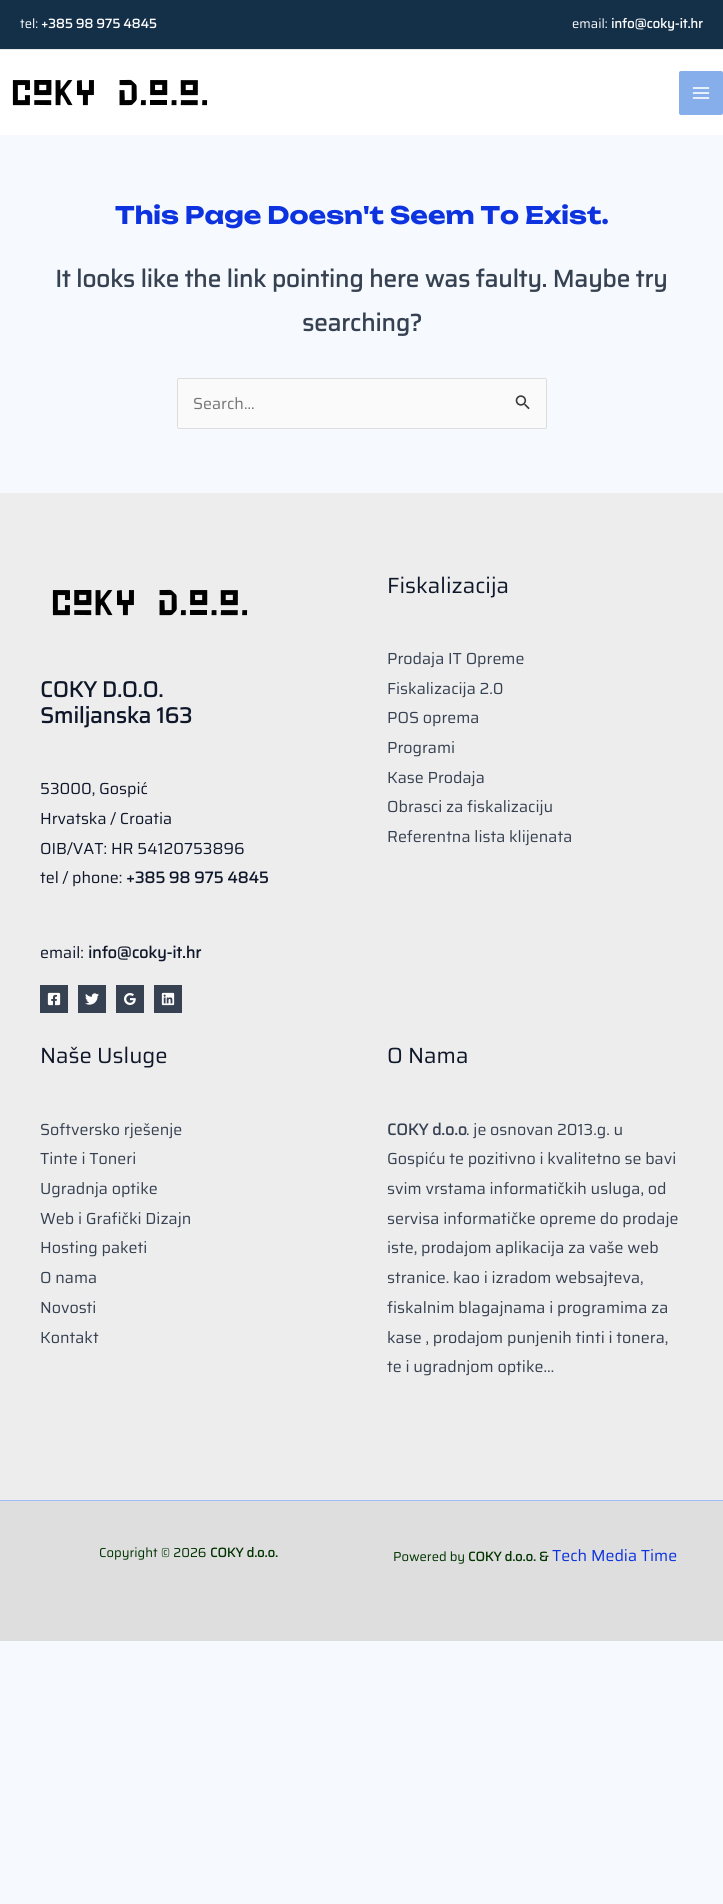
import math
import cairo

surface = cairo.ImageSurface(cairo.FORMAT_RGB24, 723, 1904)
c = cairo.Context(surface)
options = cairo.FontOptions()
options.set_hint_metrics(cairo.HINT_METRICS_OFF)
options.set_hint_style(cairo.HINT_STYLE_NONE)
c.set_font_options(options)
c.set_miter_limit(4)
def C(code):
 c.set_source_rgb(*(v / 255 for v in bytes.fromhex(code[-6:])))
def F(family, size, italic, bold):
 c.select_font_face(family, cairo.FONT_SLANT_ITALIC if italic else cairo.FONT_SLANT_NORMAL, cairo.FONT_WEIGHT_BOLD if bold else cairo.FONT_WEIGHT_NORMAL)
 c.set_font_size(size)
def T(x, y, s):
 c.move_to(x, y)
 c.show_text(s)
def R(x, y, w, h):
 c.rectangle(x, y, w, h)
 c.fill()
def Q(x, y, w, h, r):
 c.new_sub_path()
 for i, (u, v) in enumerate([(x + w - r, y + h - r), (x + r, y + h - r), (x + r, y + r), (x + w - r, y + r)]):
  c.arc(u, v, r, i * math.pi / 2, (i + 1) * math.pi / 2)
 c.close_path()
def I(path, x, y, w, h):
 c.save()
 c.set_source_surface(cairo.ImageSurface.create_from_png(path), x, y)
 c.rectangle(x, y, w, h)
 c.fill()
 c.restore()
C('f6faff')
c.paint()
C('143049')
R(0,0,723,49)
C('eaeaea')
R(0,49,723,1)
F('Saira Thin',13,0,0)
C('ffffff')
T(20,28,'tel:')
F('Saira',13,0,1)
T(41,28,'+385 98 975 4845')
F('Saira Thin',13,0,0)
T(572,28,'email:')
F('Saira',13,0,1)
T(611,28,'info@coky-it.hr')
R(0,50,723,85)
I('1.png',12,79,196,27)
C('86aeea')
Q(679,71,44,44,2)
c.fill()
I('2.png',692,87,18,12)
F('Unbounded',24,0,1)
C('0c33df')
T(115,224,'This Page Doesn\'t Seem To Exist.')
F('Saira',24,0,1)
C('364151')
T(55,287,'It looks like the link pointing here was faulty. Maybe try')
T(302,331,'searching?')
C('fafafa')
Q(177.5,378.5,369,50,1.5)
c.fill_preserve()
C('dddddd')
c.set_line_width(1)
c.stroke()
F('Saira Thin',16,0,0)
C('757575')
T(193,409,'Search...')
I('3.png',515,395,15,15)
C('ededed')
R(0,493,723,1007)
I('4.png',52,589,196,27)
F('Saira',22,0,1)
C('0f172a')
T(40,697,'COKY D.O.O.')
T(40,723,'Smiljanska 163')
F('Saira Thin',16,0,0)
T(40,794,'53000, Gospić')
T(40,824,'Hrvatska / Croatia')
T(40,854,'OIB/VAT: HR 54120753896')
T(40,883,'tel / phone:')
F('Saira',16,0,1)
T(126,883,'+385 98 975 4845')
F('Saira Thin',16,0,0)
T(40,958,'email:')
F('Saira',16,0,1)
T(88,958,'info@coky-it.hr')
C('364151')
R(40,985,28,28)
I('5.png',47,992,14,14)
R(78,985,28,28)
I('6.png',85,993,14,12)
R(116,985,28,28)
I('7.png',124,993,12,12)
R(154,985,28,28)
I('8.png',161,992,14,14)
F('Saira Thin',22,0,0)
C('0f172a')
T(387,593,'Fiskalizacija')
F('Saira Thin',16,0,0)
C('364151')
T(387,664,'Prodaja IT Opreme')
T(387,694,'Fiskalizacija 2.0')
T(387,723,'POS oprema')
T(387,753,'Programi')
T(387,783,'Kase Prodaja')
T(387,812,'Obrasci za fiskalizaciju')
T(387,842,'Referentna lista klijenata')
F('Saira Thin',22,0,0)
C('0f172a')
T(40,1063,'Naše Usluge')
F('Saira Thin',16,0,0)
C('364151')
T(40,1135,'Softversko rješenje')
T(40,1164,'Tinte i Toneri')
T(40,1194,'Ugradnja optike')
T(40,1224,'Web i Grafički Dizajn')
T(40,1253,'Hosting paketi')
T(40,1283,'O nama')
T(40,1313,'Novosti')
T(40,1343,'Kontakt')
F('Saira Thin',22,0,0)
C('0f172a')
T(387,1063,'O Nama')
F('Saira',16,0,1)
C('364151')
T(387,1135,'COKY d.o.o')
F('Saira Thin',16,0,0)
T(466,1135,'. je osnovan 2013.g. u')
T(387,1164,'Gospiću te pozitivno i kvalitetno se bavi')
T(387,1194,'svim vrstama informatičkih usluga, od')
T(387,1224,'servisa informatičke opreme do prodaje')
T(387,1253,'iste, prodajom aplikacija za vaše web')
T(387,1283,'stranice. kao i izradom websajteva,')
T(387,1313,'fiskalnim blagajnama i programima za')
T(387,1343,'kase , prodajom punjenih tinti i tonera,')
T(387,1372,'te i ugradnjom optike…')
C('dedede')
R(0,1501,723,140)
C('9fbdf6')
R(0,1500,723,1)
F('Saira Thin',13,0,0)
C('003300')
T(99,1557,'Copyright © 2026')
F('Saira',13,0,1)
T(210,1557,'COKY d.o.o.')
F('Saira Thin',13,0,0)
T(393,1561,'Powered by')
F('Saira',13,0,1)
T(468,1561,'COKY d.o.o. &')
F('Saira Thin',16,0,0)
C('0c33df')
T(552,1561,'Tech Media Time')
surface.write_to_png('o.png')
